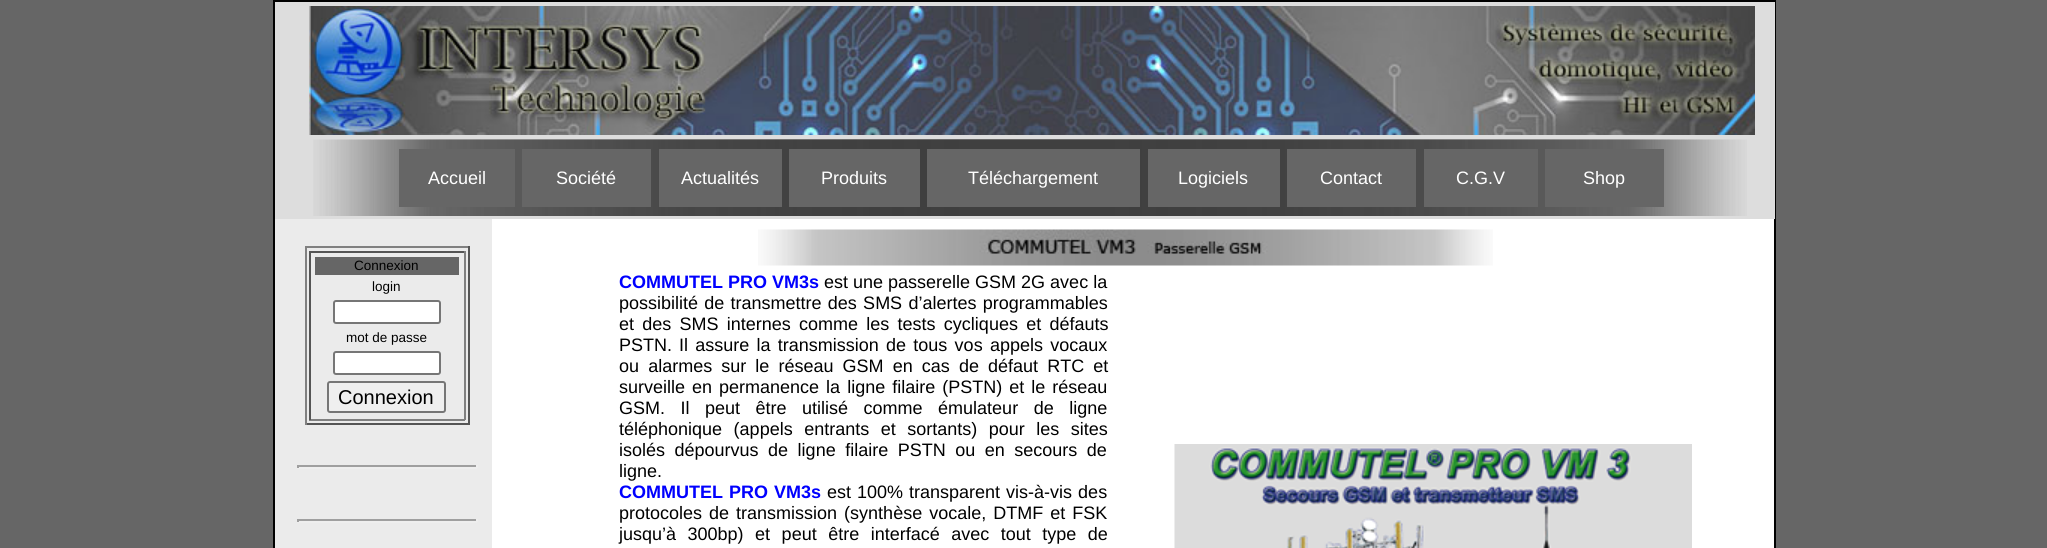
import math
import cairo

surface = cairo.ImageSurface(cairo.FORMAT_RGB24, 2047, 548)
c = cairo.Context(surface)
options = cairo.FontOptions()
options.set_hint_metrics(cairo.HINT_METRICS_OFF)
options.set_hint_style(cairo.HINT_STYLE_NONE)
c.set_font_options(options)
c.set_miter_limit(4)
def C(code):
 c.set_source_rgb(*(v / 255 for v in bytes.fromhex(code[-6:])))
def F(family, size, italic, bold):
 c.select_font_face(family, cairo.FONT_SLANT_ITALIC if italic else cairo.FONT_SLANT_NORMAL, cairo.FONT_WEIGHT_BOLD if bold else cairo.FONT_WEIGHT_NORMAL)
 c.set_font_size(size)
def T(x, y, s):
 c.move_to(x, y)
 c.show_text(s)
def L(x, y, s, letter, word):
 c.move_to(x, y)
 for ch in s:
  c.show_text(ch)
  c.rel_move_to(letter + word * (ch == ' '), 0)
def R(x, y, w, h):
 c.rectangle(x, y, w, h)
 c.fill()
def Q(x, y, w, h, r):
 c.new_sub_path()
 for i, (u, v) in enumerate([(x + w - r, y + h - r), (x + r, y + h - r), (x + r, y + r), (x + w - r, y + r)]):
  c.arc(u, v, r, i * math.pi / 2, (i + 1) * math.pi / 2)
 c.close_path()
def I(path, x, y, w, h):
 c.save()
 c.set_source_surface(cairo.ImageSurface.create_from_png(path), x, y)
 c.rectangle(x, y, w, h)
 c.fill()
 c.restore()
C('666666')
c.paint()
C('ffffff')
R(492,219,1282,329)
c.rectangle(274,1,1501,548)
C('000000')
c.stroke()
C('dddddd')
R(275,2,1500,217)
I('1.png',309,6,1446,129)
I('2.png',313,139,1434,77)
C('666666')
R(399,149,116,58)
F('Liberation Sans',18,0,0)
C('ffffff')
T(428,184,'Accueil')
C('666666')
R(522,149,129,58)
C('ffffff')
T(556,184,'Société')
C('666666')
R(659,149,123,58)
C('ffffff')
T(681,184,'Actualités')
C('666666')
R(789,149,131,58)
C('ffffff')
T(821,184,'Produits')
C('666666')
R(927,149,213,58)
C('ffffff')
T(968,184,'Téléchargement')
C('666666')
R(1148,149,132,58)
C('ffffff')
T(1178,184,'Logiciels')
C('666666')
R(1287,149,129,58)
C('ffffff')
T(1320,184,'Contact')
C('666666')
R(1424,149,114,58)
C('ffffff')
T(1456,184,'C.G.V')
C('666666')
R(1545,149,119,58)
C('ffffff')
T(1583,184,'Shop')
C('ebebeb')
R(275,219,217,329)
C('808080')
R(305,246,165,2)
C('555555')
R(468,246,2,179)
R(305,423,165,2)
C('808080')
R(305,246,2,179)
C('555555')
R(309,251,156,2)
C('808080')
R(464,251,2,169)
R(309,419,156,2)
C('555555')
R(309,251,2,169)
C('666666')
R(315,257,144,18)
F('Liberation Sans',13.5,0,0)
C('000000')
T(354,270,'Connexion')
T(372,291,'login')
C('ffffff')
Q(334,301,106,22,2)
c.fill_preserve()
C('767676')
c.stroke()
C('000000')
T(346,342,'mot de passe')
C('ffffff')
Q(334,352,106,22,2)
c.fill_preserve()
C('767676')
c.stroke()
C('efefef')
Q(328,382,117,30,2)
c.fill_preserve()
C('767676')
c.stroke()
F('Liberation Sans',20,0,0)
C('000000')
T(338,404,'Connexion')
C('9f9f9f')
R(297,465,180,2)
C('eeeeee')
R(476,465,2,3)
R(297,467,180,2)
C('9f9f9f')
R(297,465,2,3)
R(297,519,180,2)
C('eeeeee')
R(476,519,2,3)
R(297,521,180,2)
C('9f9f9f')
R(297,519,2,3)
I('3.png',758,229,735,37)
F('Liberation Sans',18,0,1)
C('0000ff')
T(619,288,'COMMUTEL PRO VM3s')
F('Liberation Sans',18,0,0)
C('000000')
T(824,288,'est une passerelle GSM 2G avec la')
L(619,309,'possibilité de transmettre des SMS d’alertes programmables',0,1.25)
L(619,330,'et des SMS internes comme les tests cycliques et défauts',0,3.25)
T(619,351,'PSTN.')
L(679,351,'Il assure la transmission de tous vos appels vocaux',0,2.25)
L(619,372,'ou alarmes sur le réseau GSM en cas de défaut RTC et',0,4.1)
L(619,393,'surveille en permanence la ligne filaire (PSTN) et le réseau',0,2)
L(619,414,'GSM. Il peut être utilisé comme émulateur de ligne',0,10.5)
L(619,435,'téléphonique (appels entrants et sortants) pour les sites',0,6.5)
L(619,456,'isolés dépourvus de ligne filaire PSTN ou en secours de',0,4.5)
T(619,477,'ligne.')
F('Liberation Sans',18,0,1)
C('0000ff')
L(619,498,'COMMUTEL PRO VM3s',0,1)
F('Liberation Sans',18,0,0)
C('000000')
L(827,498,'est 100% transparent vis-à-vis des',0,1)
L(619,519,'protocoles de transmission (synthèse vocale, DTMF et FSK',0,2)
L(619,540,'jusqu’à 300bp) et peut être interfacé avec tout type de',0,6.5)
I('4.png',1174,444,518,104)
surface.write_to_png('o.png')
